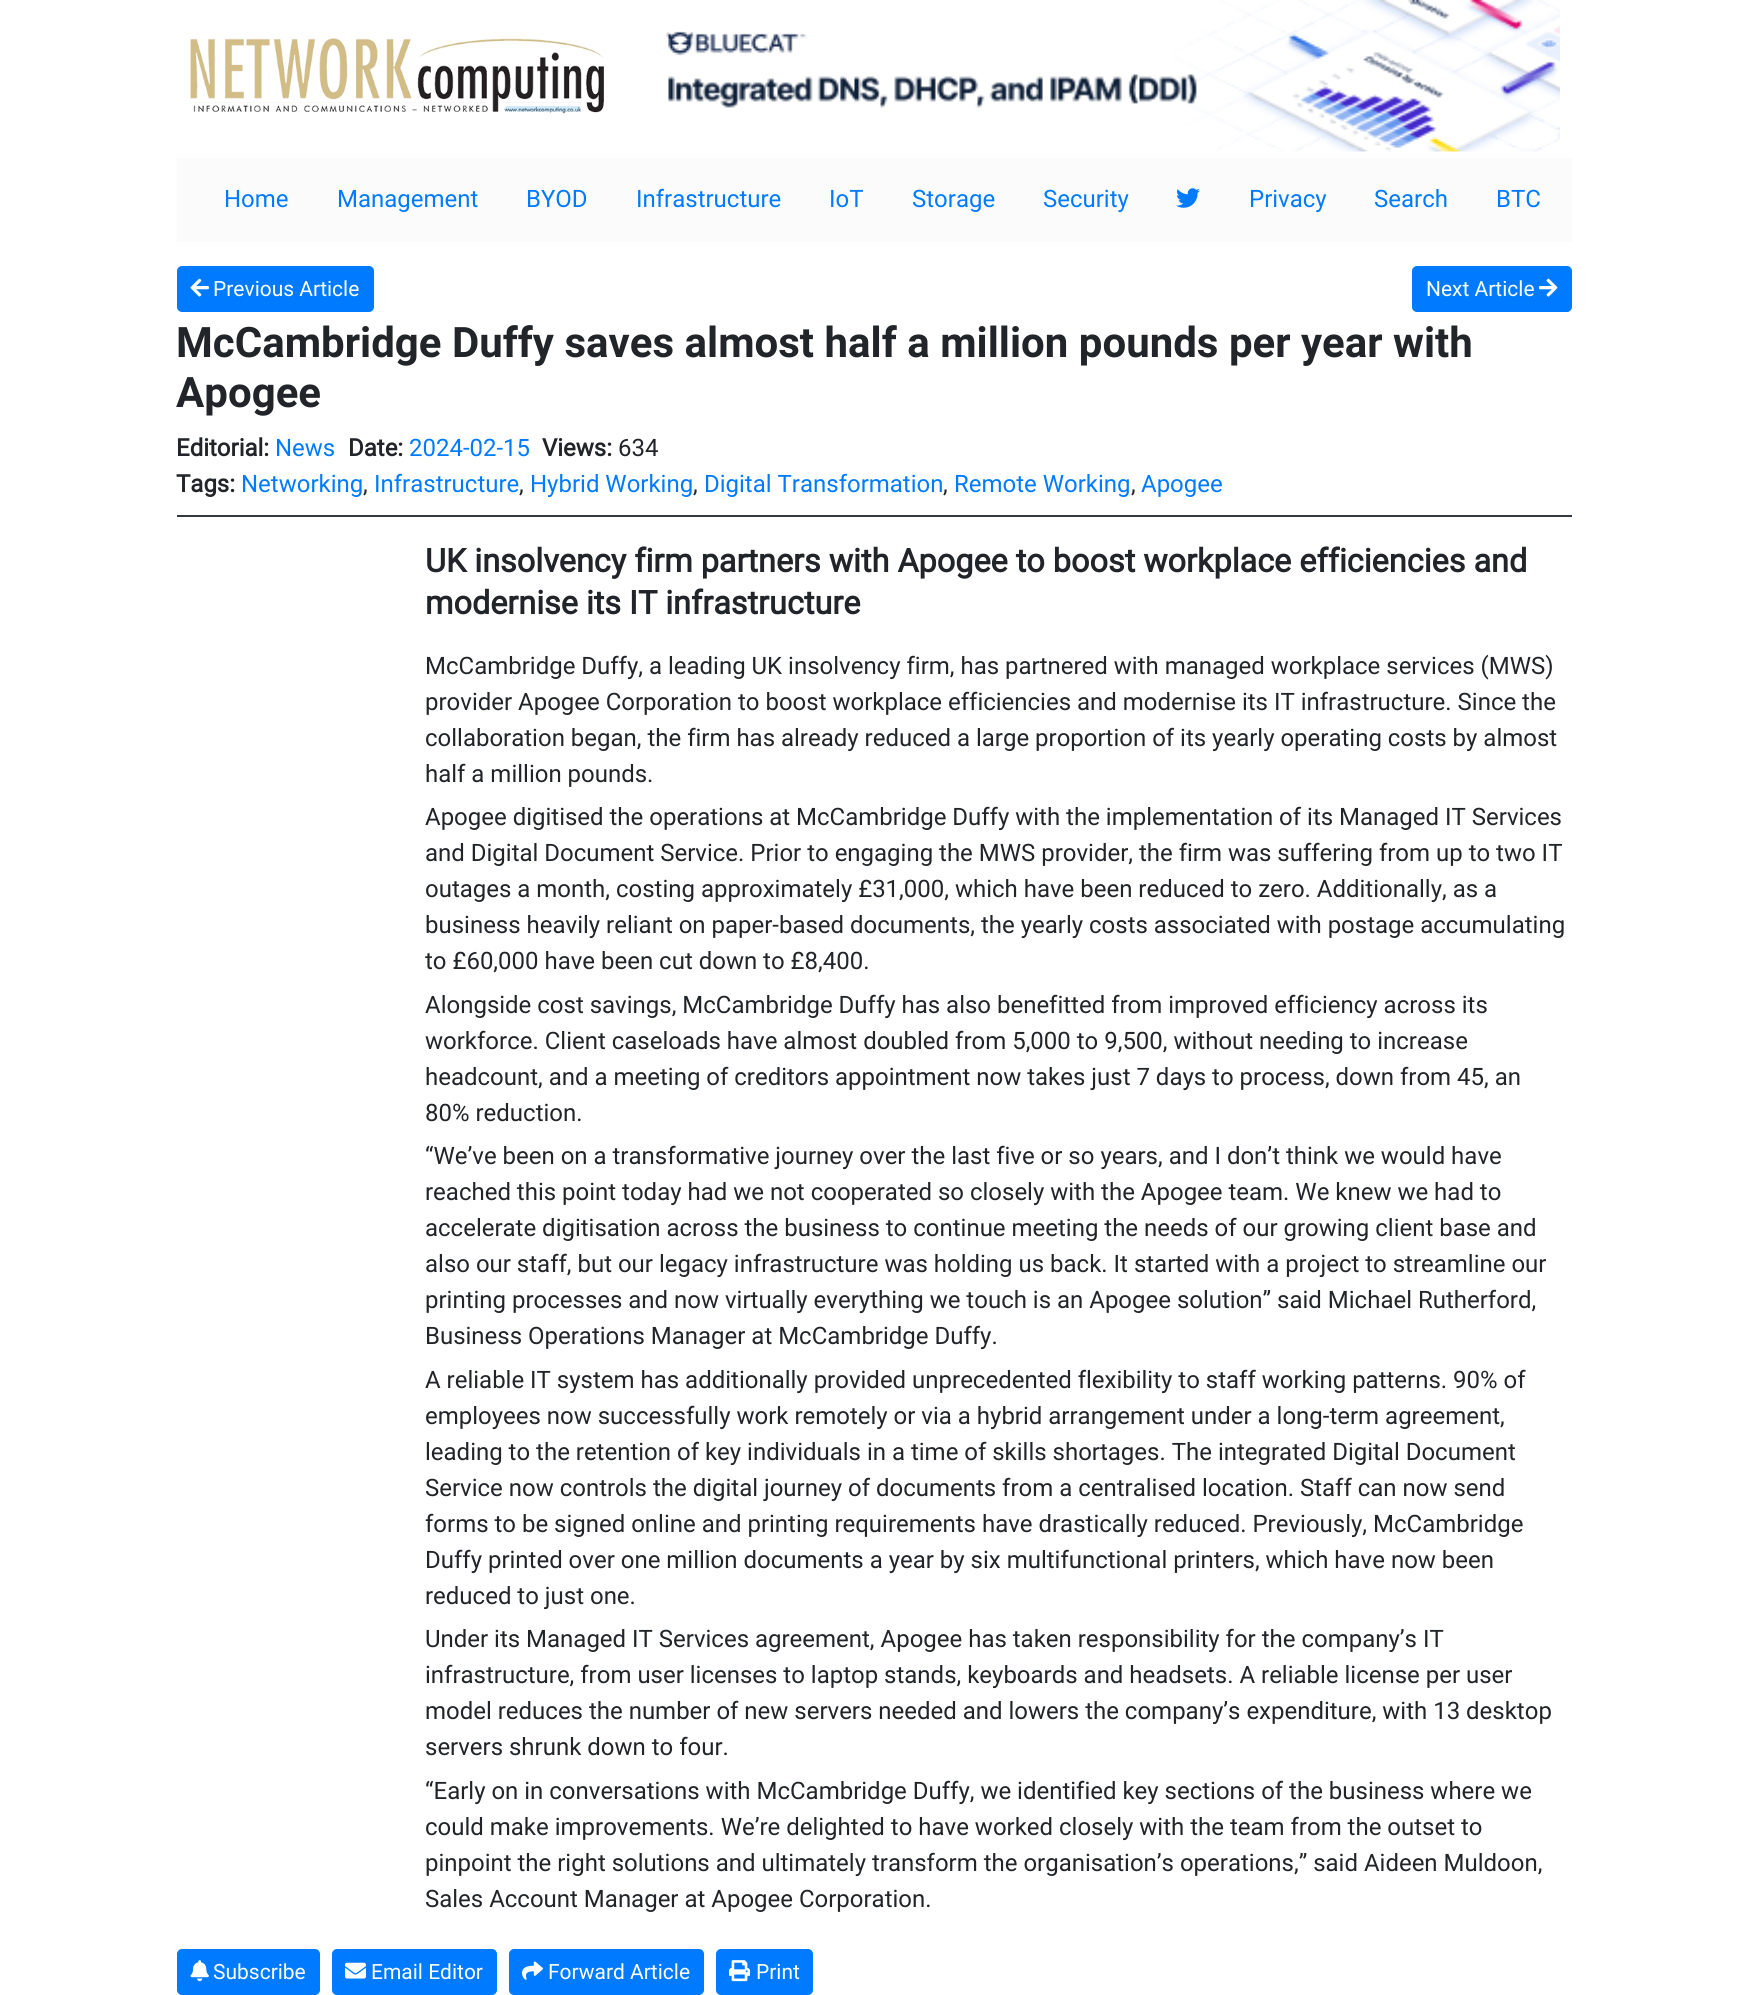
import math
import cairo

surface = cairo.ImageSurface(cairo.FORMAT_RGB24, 1747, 1995)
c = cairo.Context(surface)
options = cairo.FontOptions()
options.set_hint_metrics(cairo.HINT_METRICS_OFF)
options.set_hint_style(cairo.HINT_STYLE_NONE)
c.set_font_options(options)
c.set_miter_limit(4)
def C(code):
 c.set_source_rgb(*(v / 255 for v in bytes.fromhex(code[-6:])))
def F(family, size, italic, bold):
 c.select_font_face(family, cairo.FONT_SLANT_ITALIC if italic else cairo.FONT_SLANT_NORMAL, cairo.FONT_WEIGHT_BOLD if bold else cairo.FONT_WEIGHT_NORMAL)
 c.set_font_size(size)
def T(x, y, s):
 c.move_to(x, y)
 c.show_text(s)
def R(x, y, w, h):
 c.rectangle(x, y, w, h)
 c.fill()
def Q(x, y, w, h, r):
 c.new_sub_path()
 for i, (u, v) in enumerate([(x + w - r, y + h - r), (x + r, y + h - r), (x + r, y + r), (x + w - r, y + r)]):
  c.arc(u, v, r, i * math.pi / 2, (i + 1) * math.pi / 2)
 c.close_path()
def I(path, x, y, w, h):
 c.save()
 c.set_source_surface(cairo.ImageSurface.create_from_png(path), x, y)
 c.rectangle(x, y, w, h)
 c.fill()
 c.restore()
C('ffffff')
c.paint()
I('1.png',190,38,414,76)
I('2.png',666,0,894,152)
C('fbfbfb')
R(177,158,1395,84)
F('Roboto',24,0,0)
C('007bff')
T(224,207,'Home')
T(337,207,'Management')
T(526,207,'BYOD')
T(636,207,'Infrastructure')
T(829,207,'IoT')
T(912,207,'Storage')
T(1043,207,'Security')
I('3.png',1176,188,24,20)
T(1249,207,'Privacy')
T(1374,207,'Search')
T(1496,207,'BTC')
Q(178,267,195,44,4)
c.fill_preserve()
c.stroke()
I('4.png',190,278,19,19)
F('Roboto',21,0,0)
C('ffffff')
T(213,296,'Previous Article')
C('007bff')
Q(1413,267,158,44,4)
c.fill_preserve()
c.stroke()
C('ffffff')
T(1426,296,'Next Article')
I('5.png',1539,278,19,19)
F('Roboto',42,0,1)
C('212529')
T(176,357,'McCambridge Duffy saves almost half a million pounds per year with')
T(176,407,'Apogee')
C('343a40')
R(177,515,1395,2)
F('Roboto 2',24,0,1)
C('212529')
T(176,456,'Editorial:')
F('Roboto',24,0,0)
C('007bff')
T(275,456,'News')
F('Roboto 2',24,0,1)
C('212529')
T(348,456,'Date:')
F('Roboto',24,0,0)
C('007bff')
T(409,456,'2024-02-15')
F('Roboto 2',24,0,1)
C('212529')
T(542,456,'Views:')
F('Roboto',24,0,0)
T(618,456,'634')
F('Roboto 2',24,0,1)
T(176,492,'Tags:')
F('Roboto',24,0,0)
C('007bff')
T(241,492,'Networking')
C('212529')
T(363,492,',')
C('007bff')
T(374,492,'Infrastructure')
C('212529')
T(519,492,',')
C('007bff')
T(530,492,'Hybrid Working')
C('212529')
T(693,492,',')
C('007bff')
T(704,492,'Digital Transformation')
C('212529')
T(943,492,',')
C('007bff')
T(954,492,'Remote Working')
C('212529')
T(1131,492,',')
C('007bff')
T(1141,492,'Apogee')
F('Roboto 2',32.4,0,1)
C('212529')
T(425,572,'UK insolvency firm partners with Apogee to boost workplace efficiencies and')
T(425,614,'modernise its IT infrastructure')
F('Roboto',24,0,0)
T(425,674,'McCambridge Duffy, a leading UK insolvency firm, has partnered with managed workplace services (MWS)')
T(425,710,'provider Apogee Corporation to boost workplace efficiencies and modernise its IT infrastructure. Since the')
T(425,746,'collaboration began, the firm has already reduced a large proportion of its yearly operating costs by almost')
T(425,782,'half a million pounds.')
T(425,825,'Apogee digitised the operations at McCambridge Duffy with the implementation of its Managed IT Services')
T(425,861,'and Digital Document Service. Prior to engaging the MWS provider, the firm was suffering from up to two IT')
T(425,897,'outages a month, costing approximately £31,000, which have been reduced to zero. Additionally, as a')
T(425,933,'business heavily reliant on paper-based documents, the yearly costs associated with postage accumulating')
T(425,969,'to £60,000 have been cut down to £8,400.')
T(425,1013,'Alongside cost savings, McCambridge Duffy has also benefitted from improved efficiency across its')
T(425,1049,'workforce. Client caseloads have almost doubled from 5,000 to 9,500, without needing to increase')
T(425,1085,'headcount, and a meeting of creditors appointment now takes just 7 days to process, down from 45, an')
T(425,1121,'80% reduction.')
T(425,1164,'“We’ve been on a transformative journey over the last five or so years, and I don’t think we would have')
T(425,1200,'reached this point today had we not cooperated so closely with the Apogee team. We knew we had to')
T(425,1236,'accelerate digitisation across the business to continue meeting the needs of our growing client base and')
T(425,1272,'also our staff, but our legacy infrastructure was holding us back. It started with a project to streamline our')
T(425,1308,'printing processes and now virtually everything we touch is an Apogee solution” said Michael Rutherford,')
T(425,1344,'Business Operations Manager at McCambridge Duffy.')
T(425,1388,'A reliable IT system has additionally provided unprecedented flexibility to staff working patterns. 90% of')
T(425,1424,'employees now successfully work remotely or via a hybrid arrangement under a long-term agreement,')
T(425,1460,'leading to the retention of key individuals in a time of skills shortages. The integrated Digital Document')
T(425,1496,'Service now controls the digital journey of documents from a centralised location. Staff can now send')
T(425,1532,'forms to be signed online and printing requirements have drastically reduced. Previously, McCambridge')
T(425,1568,'Duffy printed over one million documents a year by six multifunctional printers, which have now been')
T(425,1604,'reduced to just one.')
T(425,1647,'Under its Managed IT Services agreement, Apogee has taken responsibility for the company’s IT')
T(425,1683,'infrastructure, from user licenses to laptop stands, keyboards and headsets. A reliable license per user')
T(425,1719,'model reduces the number of new servers needed and lowers the company’s expenditure, with 13 desktop')
T(425,1755,'servers shrunk down to four.')
T(425,1799,'“Early on in conversations with McCambridge Duffy, we identified key sections of the business where we')
T(425,1835,'could make improvements. We’re delighted to have worked closely with the team from the outset to')
T(425,1871,'pinpoint the right solutions and ultimately transform the organisation’s operations,” said Aideen Muldoon,')
T(425,1907,'Sales Account Manager at Apogee Corporation.')
C('007bff')
Q(178,1950,141,44,4)
c.fill_preserve()
c.stroke()
I('6.png',190,1960,19,22)
F('Roboto',21,0,0)
C('ffffff')
T(213,1979,'Subscribe')
C('007bff')
Q(333,1950,163,44,4)
c.fill_preserve()
c.stroke()
I('7.png',345,1962,21,17)
C('ffffff')
T(371,1979,'Email Editor')
C('007bff')
Q(510,1950,193,44,4)
c.fill_preserve()
c.stroke()
I('8.png',522,1961,21,19)
C('ffffff')
T(548,1979,'Forward Article')
C('007bff')
Q(717,1950,95,44,4)
c.fill_preserve()
c.stroke()
I('9.png',729,1960,21,22)
C('ffffff')
T(756,1979,'Print')
surface.write_to_png('o.png')
